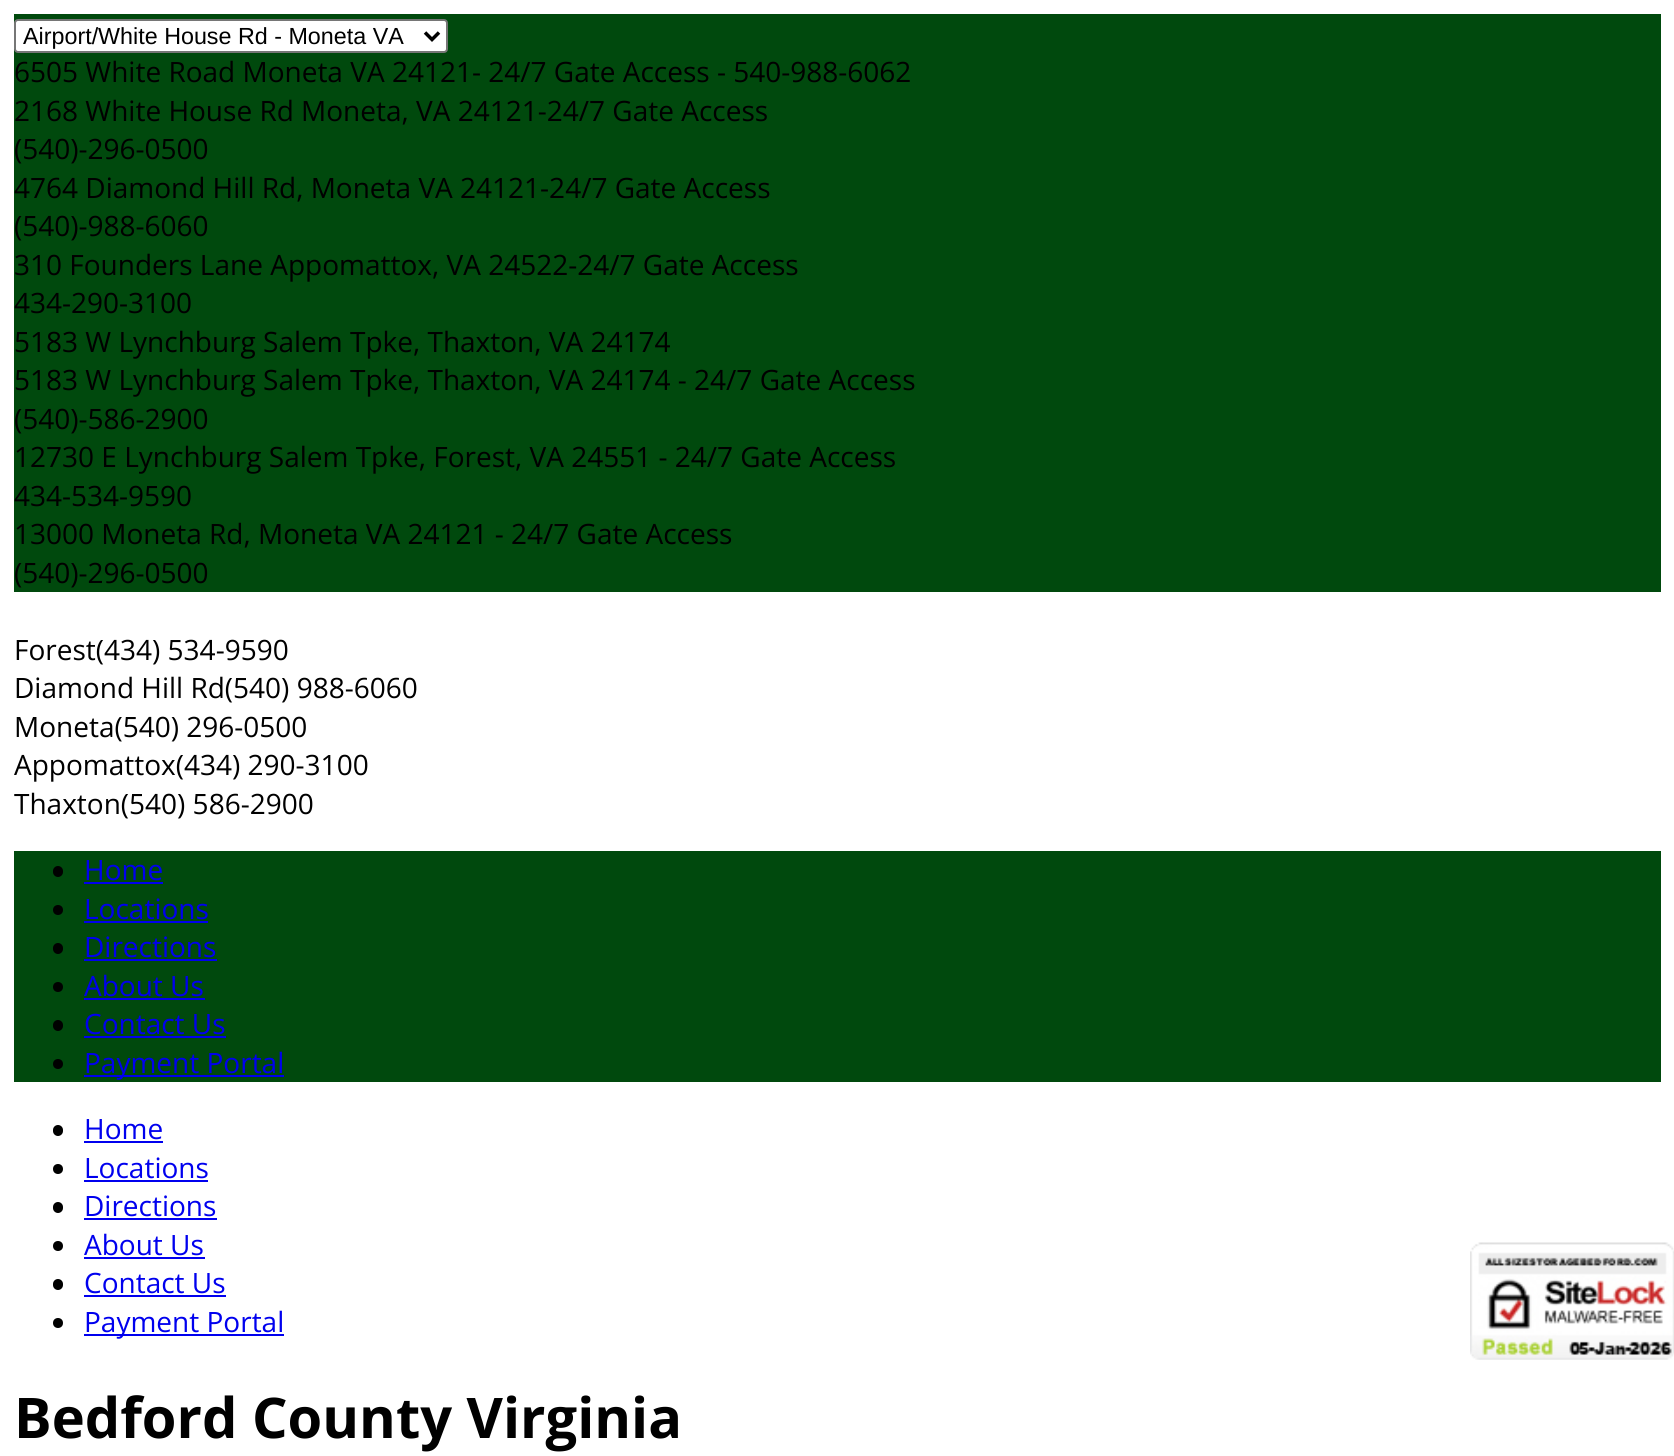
import math
import cairo

surface = cairo.ImageSurface(cairo.FORMAT_RGB24, 1674, 1456)
c = cairo.Context(surface)
options = cairo.FontOptions()
options.set_hint_metrics(cairo.HINT_METRICS_OFF)
options.set_hint_style(cairo.HINT_STYLE_NONE)
c.set_font_options(options)
c.set_miter_limit(4)
def C(code):
 c.set_source_rgb(*(v / 255 for v in bytes.fromhex(code[-6:])))
def F(family, size, italic, bold):
 c.select_font_face(family, cairo.FONT_SLANT_ITALIC if italic else cairo.FONT_SLANT_NORMAL, cairo.FONT_WEIGHT_BOLD if bold else cairo.FONT_WEIGHT_NORMAL)
 c.set_font_size(size)
def T(x, y, s):
 c.move_to(x, y)
 c.show_text(s)
def R(x, y, w, h):
 c.rectangle(x, y, w, h)
 c.fill()
def Q(x, y, w, h, r):
 c.new_sub_path()
 for i, (u, v) in enumerate([(x + w - r, y + h - r), (x + r, y + h - r), (x + r, y + r), (x + w - r, y + r)]):
  c.arc(u, v, r, i * math.pi / 2, (i + 1) * math.pi / 2)
 c.close_path()
def I(path, x, y, w, h):
 c.save()
 c.set_source_surface(cairo.ImageSurface.create_from_png(path), x, y)
 c.rectangle(x, y, w, h)
 c.fill()
 c.restore()
C('ffffff')
c.paint()
C('00490d')
R(14,14,1647,578)
C('ffffff')
Q(15,20,432,32,3)
c.fill_preserve()
C('767676')
c.stroke()
c.new_path()
c.move_to(425,32.5)
c.line_to(432,39.5)
c.line_to(439,32.5)
C('000000')
c.set_line_width(3.5)
c.stroke()
F('Liberation Sans',23.3,0,0)
T(23,44,'Airport/White House Rd - Moneta VA')
F('Open Sans',28,0,0)
T(14,82,'6505 White Road Moneta VA 24121- 24/7 Gate Access - 540-988-6062')
T(14,121,'2168 White House Rd Moneta, VA 24121-24/7 Gate Access')
T(14,159,'(540)-296-0500')
T(14,198,'4764 Diamond Hill Rd, Moneta VA 24121-24/7 Gate Access')
T(14,236,'(540)-988-6060')
T(14,275,'310 Founders Lane Appomattox, VA 24522-24/7 Gate Access')
T(14,313,'434-290-3100')
T(14,352,'5183 W Lynchburg Salem Tpke, Thaxton, VA 24174')
T(14,390,'5183 W Lynchburg Salem Tpke, Thaxton, VA 24174 - 24/7 Gate Access')
T(14,429,'(540)-586-2900')
T(14,467,'12730 E Lynchburg Salem Tpke, Forest, VA 24551 - 24/7 Gate Access')
T(14,506,'434-534-9590')
T(14,544,'13000 Moneta Rd, Moneta VA 24121 - 24/7 Gate Access')
T(14,583,'(540)-296-0500')
T(14,660,'Forest(434) 534-9590')
T(14,698,'Diamond Hill Rd(540) 988-6060')
T(14,737,'Moneta(540) 296-0500')
T(14,775,'Appomattox(434) 290-3100')
T(14,814,'Thaxton(540) 586-2900')
C('00490d')
R(14,851,1647,231)
C('000000')
Q(53,866,10,11,5)
c.fill()
C('0000ee')
T(84,880,'Home')
R(84,882,79,2)
C('000000')
c.new_path()
c.arc(58,910,5,0,2 * math.pi)
c.fill()
C('0000ee')
T(84,919,'Locations')
R(84,921,124,2)
C('000000')
Q(53,943,10,11,5)
c.fill()
C('0000ee')
T(84,957,'Directions')
R(84,959,133,2)
C('000000')
c.new_path()
c.arc(58,987,5,0,2 * math.pi)
c.fill()
C('0000ee')
T(84,996,'About Us')
R(84,998,121,2)
C('000000')
Q(53,1020,10,11,5)
c.fill()
C('0000ee')
T(84,1034,'Contact Us')
R(84,1036,142,2)
C('000000')
c.new_path()
c.arc(58,1064,5,0,2 * math.pi)
c.fill()
C('0000ee')
R(84,1075,200,2)
T(84,1073,'Payment Portal')
C('000000')
Q(53,1125,10,11,5)
c.fill()
C('0000ee')
T(84,1139,'Home')
R(84,1141,79,2)
C('000000')
c.new_path()
c.arc(58,1169,5,0,2 * math.pi)
c.fill()
C('0000ee')
T(84,1178,'Locations')
R(84,1180,124,2)
C('000000')
Q(53,1202,10,11,5)
c.fill()
C('0000ee')
T(84,1216,'Directions')
R(84,1218,133,2)
C('000000')
c.new_path()
c.arc(58,1246,5,0,2 * math.pi)
c.fill()
C('0000ee')
T(84,1255,'About Us')
R(84,1257,121,2)
C('000000')
Q(53,1279,10,11,5)
c.fill()
C('0000ee')
T(84,1293,'Contact Us')
R(84,1295,142,2)
C('000000')
c.new_path()
c.arc(58,1323,5,0,2 * math.pi)
c.fill()
C('0000ee')
R(84,1334,200,2)
T(84,1332,'Payment Portal')
I('1.png',1470,1242,204,118)
F('Open Sans',56,0,1)
C('000000')
T(14,1438,'Bedford County Virginia')
surface.write_to_png('o.png')
